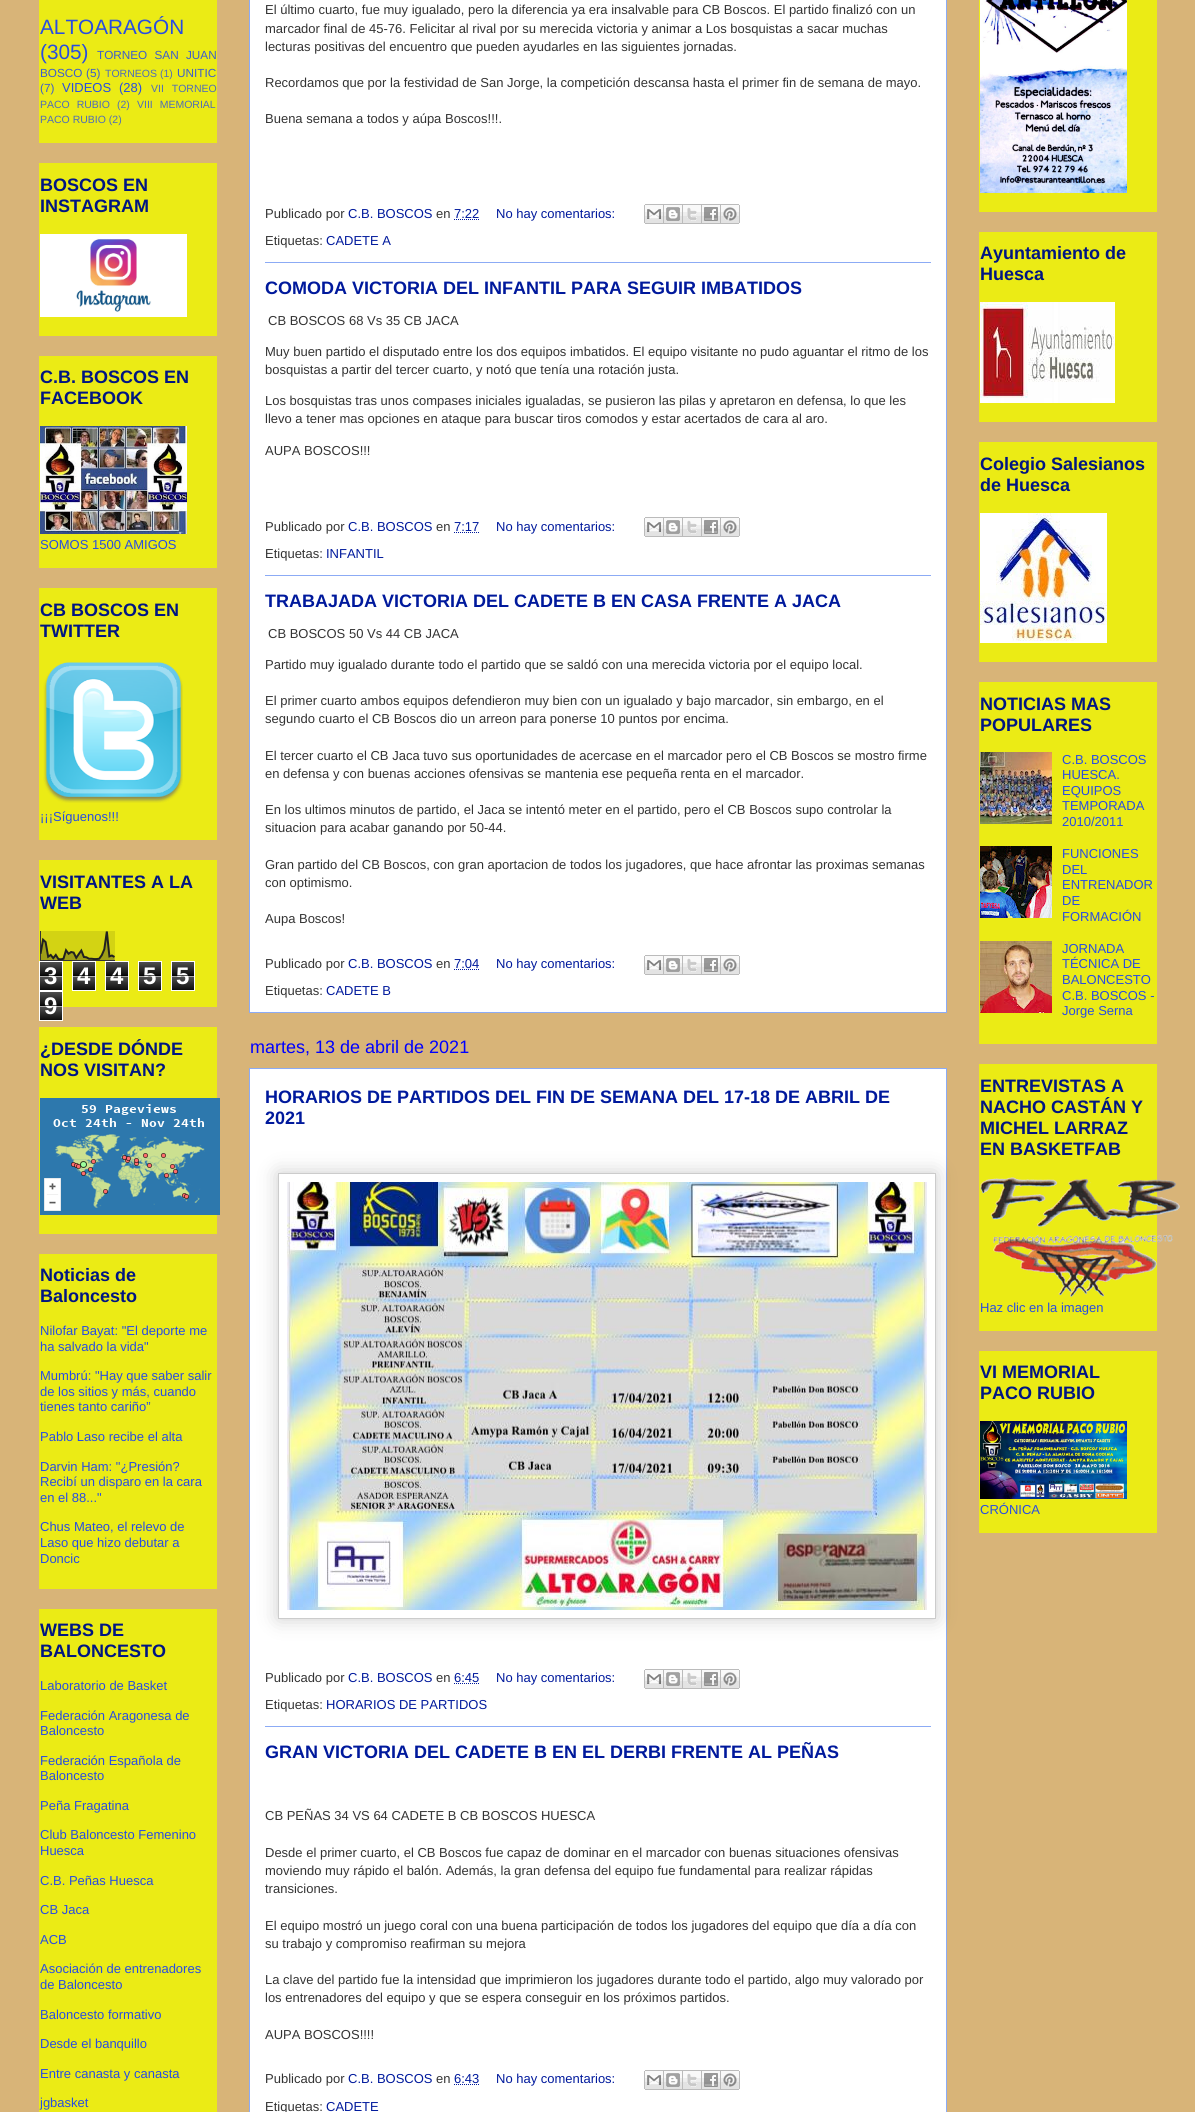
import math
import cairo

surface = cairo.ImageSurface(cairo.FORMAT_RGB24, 1195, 2112)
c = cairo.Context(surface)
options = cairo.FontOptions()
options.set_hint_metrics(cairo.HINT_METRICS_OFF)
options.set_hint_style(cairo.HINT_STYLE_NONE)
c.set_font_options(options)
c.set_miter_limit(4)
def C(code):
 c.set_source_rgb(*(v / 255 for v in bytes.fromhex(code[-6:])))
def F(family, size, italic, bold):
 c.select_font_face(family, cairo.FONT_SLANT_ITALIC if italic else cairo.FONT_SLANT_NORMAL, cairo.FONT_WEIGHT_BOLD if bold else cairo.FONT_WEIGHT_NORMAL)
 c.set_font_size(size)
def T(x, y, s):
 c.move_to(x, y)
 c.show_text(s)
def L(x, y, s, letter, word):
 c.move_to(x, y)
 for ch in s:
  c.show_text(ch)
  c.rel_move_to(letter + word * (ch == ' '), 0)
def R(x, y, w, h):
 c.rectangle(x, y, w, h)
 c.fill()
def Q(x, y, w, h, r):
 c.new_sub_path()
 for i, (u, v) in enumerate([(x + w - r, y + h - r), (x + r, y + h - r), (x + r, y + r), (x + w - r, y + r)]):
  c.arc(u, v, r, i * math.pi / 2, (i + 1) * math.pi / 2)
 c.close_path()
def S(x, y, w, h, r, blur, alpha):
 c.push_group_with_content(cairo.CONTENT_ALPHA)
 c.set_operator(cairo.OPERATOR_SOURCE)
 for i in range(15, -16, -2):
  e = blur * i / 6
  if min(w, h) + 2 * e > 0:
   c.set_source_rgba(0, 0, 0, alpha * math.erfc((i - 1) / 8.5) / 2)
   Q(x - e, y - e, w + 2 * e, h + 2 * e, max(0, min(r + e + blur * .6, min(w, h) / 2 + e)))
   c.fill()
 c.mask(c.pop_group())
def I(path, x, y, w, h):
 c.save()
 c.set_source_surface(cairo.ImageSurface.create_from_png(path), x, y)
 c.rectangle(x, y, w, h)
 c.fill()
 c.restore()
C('d8b478')
c.paint()
C('ebeb15')
R(39,0,178,143)
F('Liberation Sans',20.75,0,0)
C('284de1')
T(40,34,'ALTOARAGÓN')
T(40,59,'(305)')
F('Liberation Sans',11.75,0,0)
C('3c5dcd')
L(97,59,'TORNEO SAN JUAN',0,4)
T(40,77,'BOSCO')
T(86,77,'(5)')
F('Liberation Sans',10.5,0,0)
C('4f6db8')
T(105,77,'TORNEOS')
T(160,77,'(1)')
F('Liberation Sans',11.75,0,0)
C('3c5dcd')
T(177,77,'UNITIC')
T(40,92,'(7)')
F('Liberation Sans',13,0,0)
C('284de1')
T(62,92,'VIDEOS')
T(119,92,'(28)')
F('Liberation Sans',10.5,0,0)
C('4f6db8')
L(151,92,'VII TORNEO',0,5)
L(40,108,'PACO RUBIO',0,4)
T(117,108,'(2)')
L(137,108,'VIII MEMORIAL',0,4)
T(40,123,'PACO RUBIO (2)')
C('ebeb15')
R(39,163,178,173)
F('Liberation Sans',18,0,1)
C('001582')
T(40,191,'BOSCOS EN')
T(40,212,'INSTAGRAM')
I('1.png',40,234,147,83)
C('ebeb15')
R(39,356,178,212)
C('001582')
T(40,383,'C.B. BOSCOS EN')
T(40,404,'FACEBOOK')
I('2.png',40,426,147,108)
F('Liberation Sans',13,0,0)
C('284de1')
T(40,549,'SOMOS 1500 AMIGOS')
C('ebeb15')
R(39,588,178,252)
F('Liberation Sans',18,0,1)
C('001582')
T(40,616,'CB BOSCOS EN')
T(40,637,'TWITTER')
I('3.png',43,662,140,141)
F('Liberation Sans',13,0,0)
C('284de1')
T(40,821,'¡¡¡Síguenos!!!')
C('ebeb15')
R(39,860,178,147)
F('Liberation Sans',18,0,1)
C('001582')
T(40,888,'VISITANTES A LA')
T(40,909,'WEB')
I('4.png',40,931,75,30)
I('5.png',40,962,22,28)
c.rectangle(39.5,961.5,23,29)
C('ffffff')
c.set_line_width(1)
c.stroke()
F('Liberation Sans',24,0,1)
T(44,984,'3')
c.set_source_rgba(0,0,0,0.65)
R(40,975,22,1)
c.set_source_rgba(1,1,1,0.65)
R(40,976,22,1)
I('5.png',73,962,22,28)
c.rectangle(72.5,961.5,23,29)
C('ffffff')
c.stroke()
T(77,984,'4')
c.set_source_rgba(0,0,0,0.65)
R(73,975,22,1)
c.set_source_rgba(1,1,1,0.65)
R(73,976,22,1)
I('5.png',106,962,22,28)
c.rectangle(105.5,961.5,23,29)
C('ffffff')
c.stroke()
T(110,984,'4')
c.set_source_rgba(0,0,0,0.65)
R(106,975,22,1)
c.set_source_rgba(1,1,1,0.65)
R(106,976,22,1)
I('5.png',139,962,22,28)
c.rectangle(138.5,961.5,23,29)
C('ffffff')
c.stroke()
T(143,984,'5')
c.set_source_rgba(0,0,0,0.65)
R(139,975,22,1)
c.set_source_rgba(1,1,1,0.65)
R(139,976,22,1)
I('5.png',172,962,22,28)
c.rectangle(171.5,961.5,23,29)
C('ffffff')
c.stroke()
T(176,984,'5')
c.set_source_rgba(0,0,0,0.65)
R(172,975,22,1)
c.set_source_rgba(1,1,1,0.65)
R(172,976,22,1)
I('5.png',40,992,22,28)
c.rectangle(39.5,991.5,23,29)
C('ffffff')
c.stroke()
T(44,1014,'9')
c.set_source_rgba(0,0,0,0.65)
R(40,1005,22,1)
c.set_source_rgba(1,1,1,0.65)
R(40,1006,22,1)
C('ebeb15')
R(39,1027,178,207)
F('Liberation Sans',18,0,1)
C('001582')
T(40,1055,'¿DESDE DÓNDE')
T(40,1076,'NOS VISITAN?')
I('6.png',40,1098,180,117)
C('ebeb15')
R(39,1254,178,335)
C('001582')
T(40,1281,'Noticias de')
T(40,1302,'Baloncesto')
F('Liberation Sans',13,0,0)
C('284de1')
T(40,1335,'Nilofar Bayat: "El deporte me')
T(40,1351,'ha salvado la vida"')
T(40,1380,'Mumbrú: "Hay que saber salir')
T(40,1396,'de los sitios y más, cuando')
T(40,1411,'tienes tanto cariño”')
T(40,1441,'Pablo Laso recibe el alta')
T(40,1471,'Darvin Ham: "¿Presión?')
T(40,1486,'Recibí un disparo en la cara')
T(40,1502,'en el 88..."')
T(40,1531,'Chus Mateo, el relevo de')
T(40,1547,'Laso que hizo debutar a')
T(40,1563,'Doncic')
C('ebeb15')
R(39,1609,178,503)
F('Liberation Sans',18,0,1)
C('001582')
T(40,1636,'WEBS DE')
T(40,1657,'BALONCESTO')
F('Liberation Sans',13,0,0)
C('284de1')
T(40,1690,'Laboratorio de Basket')
T(40,1720,'Federación Aragonesa de')
T(40,1735,'Baloncesto')
T(40,1765,'Federación Española de')
T(40,1780,'Baloncesto')
T(40,1810,'Peña Fragatina')
T(40,1839,'Club Baloncesto Femenino')
T(40,1855,'Huesca')
T(40,1885,'C.B. Peñas Huesca')
T(40,1914,'CB Jaca')
T(40,1944,'ACB')
T(40,1973,'Asociación de entrenadores')
T(40,1989,'de Baloncesto')
T(40,2019,'Baloncesto formativo')
T(40,2048,'Desde el banquillo')
T(40,2078,'Entre canasta y canasta')
T(40,2107,'jgbasket')
C('ffffff')
c.rectangle(249.5,-.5,697,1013)
c.fill_preserve()
C('8cabf5')
c.stroke()
C('333333')
T(265,14,'El último cuarto, fue muy igualado, pero la diferencia ya era insalvable para CB Boscos. El partido finalizó con un')
T(265,33,'marcador final de 45-76. Felicitar al rival por su merecida victoria y animar a Los bosquistas a sacar muchas')
T(265,51,'lecturas positivas del encuentro que pueden ayudarles en las siguientes jornadas.')
T(265,87,'Recordamos que por la festividad de San Jorge, la competición descansa hasta el primer fin de semana de mayo.')
T(265,123,'Buena semana a todos y aúpa Boscos!!!.')
T(265,218,'Publicado por')
C('00199c')
T(348,218,'C.B. BOSCOS')
C('333333')
T(436,218,'en')
c.new_path()
c.move_to(454,219.5)
c.line_to(479,219.5)
C('00199c')
c.set_dash([1,1])
c.stroke()
T(454,218,'7:22')
T(496,218,'No hay comentarios:')
I('7.png',644,204,20,20)
I('8.png',664,204,19,20)
I('9.png',683,204,19,20)
I('10.png',702,204,19,20)
I('11.png',721,204,19,20)
C('333333')
T(265,245,'Etiquetas:')
C('00199c')
T(326,245,'CADETE A')
C('8cabf5')
R(265,262,666,1)
F('Liberation Sans',18,0,1)
C('00199c')
T(265,294,'COMODA VICTORIA DEL INFANTIL PARA SEGUIR IMBATIDOS')
F('Liberation Sans',13,0,0)
C('333333')
T(268,325,'CB BOSCOS 68 Vs 35 CB JACA')
T(265,356,'Muy buen partido el disputado entre los dos equipos imbatidos. El equipo visitante no pudo aguantar el ritmo de los')
T(265,374,'bosquistas a partir del tercer cuarto, y notó que tenía una rotación justa.')
T(265,405,'Los bosquistas tras unos compases iniciales igualadas, se pusieron las pilas y apretaron en defensa, lo que les')
T(265,423,'llevo a tener mas opciones en ataque para buscar tiros comodos y estar acertados de cara al aro.')
T(265,455,'AUPA BOSCOS!!!')
T(265,531,'Publicado por')
C('00199c')
T(348,531,'C.B. BOSCOS')
C('333333')
T(436,531,'en')
C('00199c')
T(454,531,'7:17')
c.new_path()
c.move_to(454,532.5)
c.line_to(479,532.5)
c.stroke()
T(496,531,'No hay comentarios:')
I('7.png',644,517,20,20)
I('8.png',664,517,19,20)
I('9.png',683,517,19,20)
I('10.png',702,517,19,20)
I('11.png',721,517,19,20)
C('333333')
T(265,558,'Etiquetas:')
C('00199c')
T(326,558,'INFANTIL')
C('8cabf5')
R(265,575,666,1)
F('Liberation Sans',18,0,1)
C('00199c')
T(265,607,'TRABAJADA VICTORIA DEL CADETE B EN CASA FRENTE A JACA')
F('Liberation Sans',13,0,0)
C('333333')
T(268,638,'CB BOSCOS 50 Vs 44 CB JACA')
T(265,669,'Partido muy igualado durante todo el partido que se saldó con una merecida victoria por el equipo local.')
T(265,705,'El primer cuarto ambos equipos defendieron muy bien con un igualado y bajo marcador, sin embargo, en el')
T(265,723,'segundo cuarto el CB Boscos dio un arreon para ponerse 10 puntos por encima.')
T(265,760,'El tercer cuarto el CB Jaca tuvo sus oportunidades de acercase en el marcador pero el CB Boscos se mostro firme')
T(265,778,'en defensa y con buenas acciones ofensivas se mantenia ese pequeña renta en el marcador.')
T(265,814,'En los ultimos minutos de partido, el Jaca se intentó meter en el partido, pero el CB Boscos supo controlar la')
T(265,832,'situacion para acabar ganando por 50-44.')
T(265,869,'Gran partido del CB Boscos, con gran aportacion de todos los jugadores, que hace afrontar las proximas semanas')
T(265,887,'con optimismo.')
T(265,923,'Aupa Boscos!')
T(265,968,'Publicado por')
C('00199c')
T(348,968,'C.B. BOSCOS')
C('333333')
T(436,968,'en')
C('00199c')
T(454,968,'7:04')
c.new_path()
c.move_to(454,969.5)
c.line_to(479,969.5)
c.stroke()
T(496,968,'No hay comentarios:')
I('7.png',644,955,20,20)
I('8.png',664,955,19,20)
I('9.png',683,955,19,20)
I('10.png',702,955,19,20)
I('11.png',721,955,19,20)
C('333333')
T(265,995,'Etiquetas:')
C('00199c')
T(326,995,'CADETE B')
C('ffffff')
c.rectangle(249.5,1068.5,697,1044)
c.fill_preserve()
C('8cabf5')
c.set_dash([])
c.stroke()
F('Liberation Sans',18,0,0)
C('0000ff')
T(250,1053,'martes, 13 de abril de 2021')
F('Liberation Sans',18,0,1)
C('00199c')
T(265,1103,'HORARIOS DE PARTIDOS DEL FIN DE SEMANA DEL 17-18 DE ABRIL DE')
T(265,1124,'2021')
c.save()
c.set_fill_rule(cairo.FILL_RULE_EVEN_ODD)
c.new_path()
c.move_to(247,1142)
c.line_to(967,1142)
c.line_to(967,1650)
c.line_to(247,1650)
c.close_path()
c.move_to(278,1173)
c.line_to(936,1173)
c.line_to(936,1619)
c.line_to(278,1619)
c.close_path()
c.clip()
C('000000')
S(278,1173,658,446,0,10,.2)
c.restore()
c.rectangle(278.5,1173.5,657,445)
C('cccccc')
c.stroke()
I('12.png',287,1182,640,428)
F('Liberation Sans',13,0,0)
C('333333')
T(265,1682,'Publicado por')
C('00199c')
T(348,1682,'C.B. BOSCOS')
C('333333')
T(436,1682,'en')
C('00199c')
T(454,1682,'6:45')
c.new_path()
c.move_to(454,1683.5)
c.line_to(479,1683.5)
c.set_dash([1,1])
c.stroke()
T(496,1682,'No hay comentarios:')
I('7.png',644,1669,20,20)
I('8.png',664,1669,19,20)
I('9.png',683,1669,19,20)
I('10.png',702,1669,19,20)
I('11.png',721,1669,19,20)
C('333333')
T(265,1709,'Etiquetas:')
C('00199c')
T(326,1709,'HORARIOS DE PARTIDOS')
C('8cabf5')
R(265,1726,666,1)
F('Liberation Sans',18,0,1)
C('00199c')
T(265,1758,'GRAN VICTORIA DEL CADETE B EN EL DERBI FRENTE AL PEÑAS')
F('Liberation Sans',13,0,0)
C('333333')
T(265,1820,'CB PEÑAS 34 VS 64 CADETE B CB BOSCOS HUESCA')
T(265,1857,'Desde el primer cuarto, el CB Boscos fue capaz de dominar en el marcador con buenas situaciones ofensivas')
T(265,1875,'moviendo muy rápido el balón. Además, la gran defensa del equipo fue fundamental para realizar rápidas')
T(265,1893,'transiciones.')
T(265,1930,'El equipo mostró un juego coral con una buena participación de todos los jugadores del equipo que día a día con')
T(265,1948,'su trabajo y compromiso reafirman su mejora')
T(265,1984,'La clave del partido fue la intensidad que imprimieron los jugadores durante todo el partido, algo muy valorado por')
T(265,2002,'los entrenadores del equipo y que se espera conseguir en los próximos partidos.')
T(265,2039,'AUPA BOSCOS!!!!')
T(265,2083,'Publicado por')
C('00199c')
T(348,2083,'C.B. BOSCOS')
C('333333')
T(436,2083,'en')
C('00199c')
T(454,2083,'6:43')
c.new_path()
c.move_to(454,2084.5)
c.line_to(479,2084.5)
c.stroke()
T(496,2083,'No hay comentarios:')
I('7.png',644,2070,20,20)
I('8.png',664,2070,19,20)
I('9.png',683,2070,19,20)
I('10.png',702,2070,19,20)
I('11.png',721,2070,19,20)
C('333333')
T(265,2111,'Etiquetas:')
C('00199c')
T(326,2111,'CADETE')
C('ebeb15')
R(979,0,178,212)
I('13.png',980,0,147,193)
R(979,232,178,190)
F('Liberation Sans',18,0,1)
C('001582')
T(980,259,'Ayuntamiento de')
T(980,280,'Huesca')
I('14.png',980,302,135,101)
C('ebeb15')
R(979,442,178,220)
C('001582')
T(980,470,'Colegio Salesianos')
T(980,491,'de Huesca')
I('15.png',980,513,127,130)
C('ebeb15')
R(979,682,178,362)
C('001582')
T(980,710,'NOTICIAS MAS')
T(980,731,'POPULARES')
I('16.png',980,752,72,72)
F('Liberation Sans',13,0,0)
C('284de1')
T(1062,764,'C.B. BOSCOS')
T(1062,779,'HUESCA.')
T(1062,795,'EQUIPOS')
T(1062,810,'TEMPORADA')
T(1062,826,'2010/2011')
I('17.png',980,846,72,72)
T(1062,858,'FUNCIONES')
T(1062,874,'DEL')
T(1062,889,'ENTRENADOR')
T(1062,905,'DE')
T(1062,921,'FORMACIÓN')
I('18.png',980,941,72,72)
T(1062,953,'JORNADA')
T(1062,968,'TÉCNICA DE')
T(1062,984,'BALONCESTO')
T(1062,1000,'C.B. BOSCOS -')
T(1062,1015,'Jorge Serna')
C('ebeb15')
R(979,1064,178,267)
F('Liberation Sans',18,0,1)
C('001582')
T(980,1092,'ENTREVISTAS A')
T(980,1113,'NACHO CASTÁN Y')
T(980,1134,'MICHEL LARRAZ')
T(980,1155,'EN BASKETFAB')
I('19.png',980,1177,200,120)
F('Liberation Sans',13,0,0)
C('284de1')
T(980,1312,'Haz clic en la imagen')
C('ebeb15')
R(979,1351,178,182)
F('Liberation Sans',18,0,1)
C('001582')
T(980,1378,'VI MEMORIAL')
T(980,1399,'PACO RUBIO')
I('20.png',980,1421,147,78)
F('Liberation Sans',13,0,0)
C('284de1')
T(980,1514,'CRÓNICA')
surface.write_to_png('o.png')
